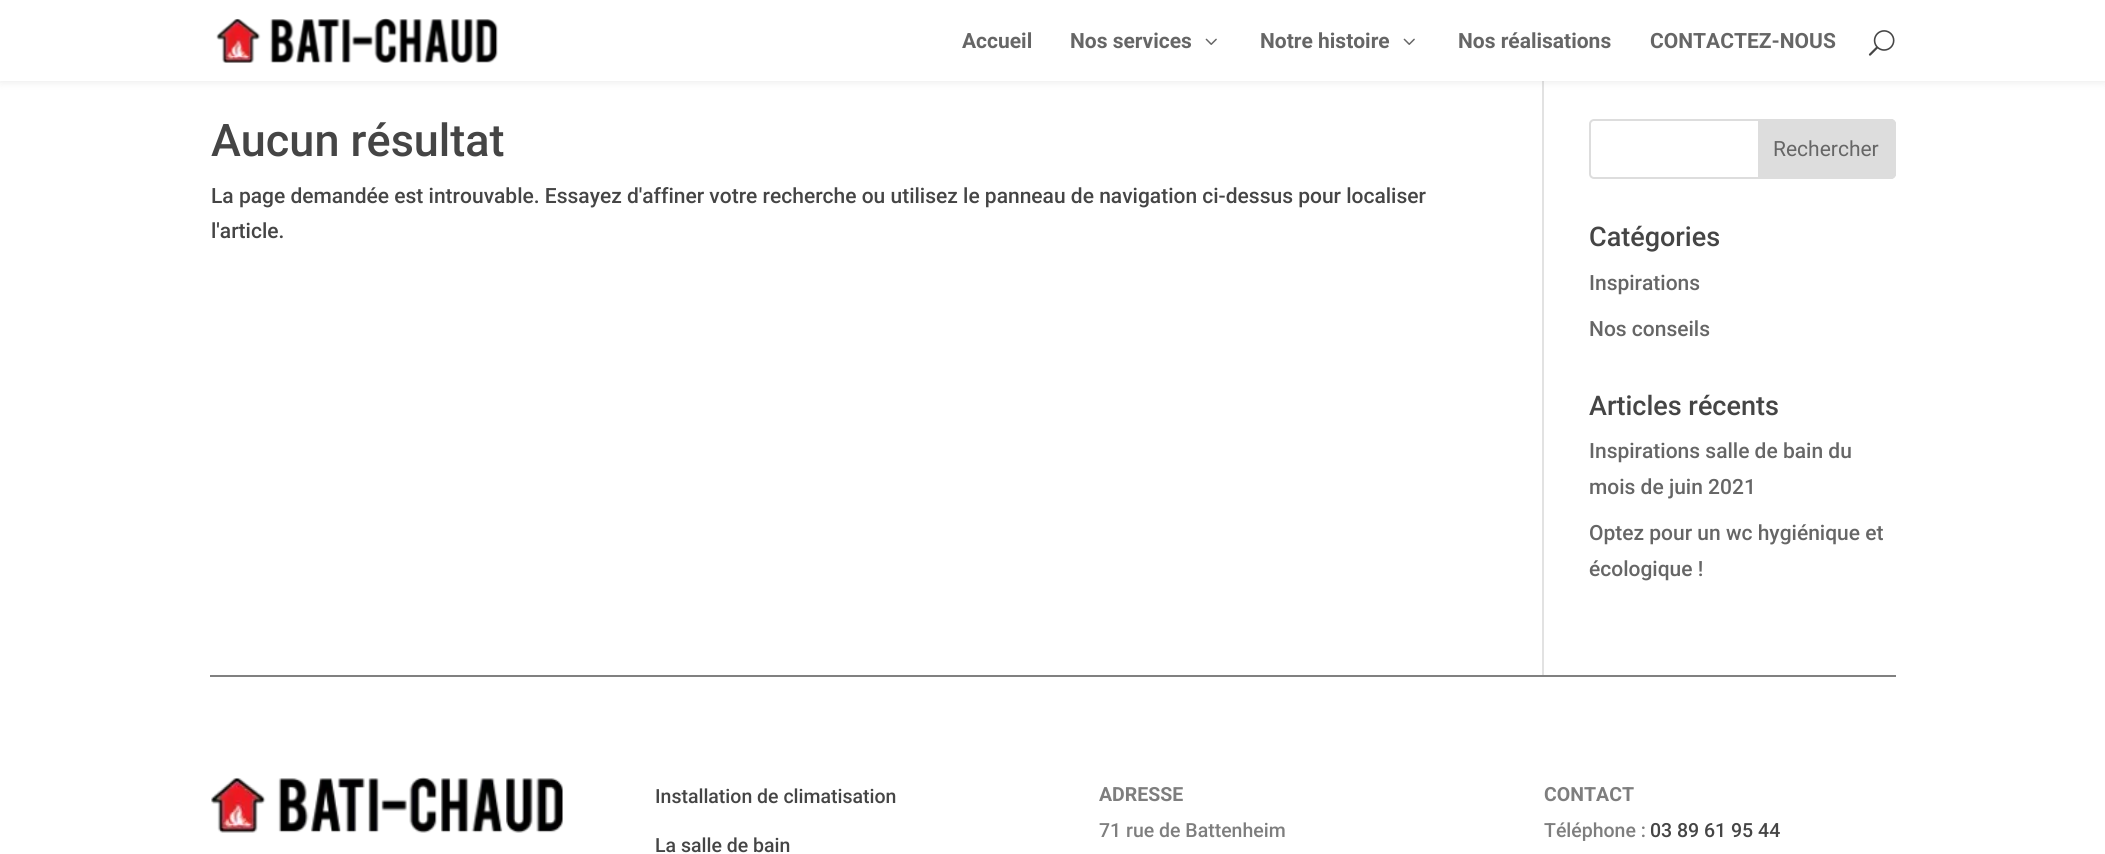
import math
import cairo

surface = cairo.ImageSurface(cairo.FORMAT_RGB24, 2105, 854)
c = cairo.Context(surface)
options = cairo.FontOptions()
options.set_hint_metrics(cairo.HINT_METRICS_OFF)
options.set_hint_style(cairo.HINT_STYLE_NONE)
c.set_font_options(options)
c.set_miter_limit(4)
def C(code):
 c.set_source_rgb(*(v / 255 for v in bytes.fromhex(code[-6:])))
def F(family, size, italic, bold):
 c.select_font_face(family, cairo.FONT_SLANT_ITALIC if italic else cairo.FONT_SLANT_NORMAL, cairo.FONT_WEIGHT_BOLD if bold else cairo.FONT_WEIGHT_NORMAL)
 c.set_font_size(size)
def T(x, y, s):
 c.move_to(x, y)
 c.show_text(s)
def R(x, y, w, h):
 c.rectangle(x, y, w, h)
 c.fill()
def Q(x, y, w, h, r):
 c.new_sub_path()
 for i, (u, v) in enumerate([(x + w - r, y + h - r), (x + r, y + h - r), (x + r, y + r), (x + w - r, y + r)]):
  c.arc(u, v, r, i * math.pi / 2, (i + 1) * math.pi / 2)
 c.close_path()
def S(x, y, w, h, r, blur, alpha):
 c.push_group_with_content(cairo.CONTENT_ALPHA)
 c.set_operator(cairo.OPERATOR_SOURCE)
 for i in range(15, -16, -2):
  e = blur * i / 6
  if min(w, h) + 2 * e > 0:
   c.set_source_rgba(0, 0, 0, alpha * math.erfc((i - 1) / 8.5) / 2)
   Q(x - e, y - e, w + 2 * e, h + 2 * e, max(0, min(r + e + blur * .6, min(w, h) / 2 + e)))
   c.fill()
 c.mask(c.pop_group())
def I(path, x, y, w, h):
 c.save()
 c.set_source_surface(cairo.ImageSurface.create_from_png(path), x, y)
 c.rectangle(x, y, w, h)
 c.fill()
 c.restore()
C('ffffff')
c.paint()
C('e2e2e2')
R(1542,81,2,594)
C('000000')
S(0,0,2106,81,0,5,.1)
C('ffffff')
R(0,0,2105,81)
I('1.png',216,18,282,45)
F('Roboto',21,0,1)
C('666666')
T(962,48,'Accueil')
T(1070,48,'Nos services')
I('2.png',1205,38,12,7)
T(1260,48,'Notre histoire')
I('2.png',1403,38,12,7)
T(1458,48,'Nos réalisations')
T(1650,48,'CONTACTEZ-NOUS')
I('3.png',1868,30,27,26)
F('Roboto Medium',45,0,0)
C('454545')
T(211,156,'Aucun résultat')
F('Roboto Medium',21,0,0)
T(211,203,'La page demandée est introuvable. Essayez d\'affiner votre recherche ou utilisez le panneau de navigation ci-dessus pour localiser')
T(211,238,'l\'article.')
Q(1590,120,305,58,4)
C('dddddd')
c.stroke()
c.new_path()
c.move_to(1759,120)
c.line_to(1891,120)
c.curve_to(1893,120,1895,122,1895,124)
c.line_to(1895,174)
c.curve_to(1895,176,1893,178,1891,178)
c.line_to(1759,178)
c.close_path()
c.fill_preserve()
c.stroke()
F('Roboto',21,0,0)
C('666666')
T(1773,156,'Rechercher')
F('Roboto Medium',27,0,0)
C('454545')
T(1589,246,'Catégories')
F('Roboto Medium',21,0,0)
C('666666')
T(1589,290,'Inspirations')
T(1589,336,'Nos conseils')
F('Roboto Medium',27,0,0)
C('454545')
T(1589,415,'Articles récents')
F('Roboto Medium',21,0,0)
C('666666')
T(1589,458,'Inspirations salle de bain du')
T(1589,494,'mois de juin 2021')
T(1589,540,'Optez pour un wc hygiénique et')
T(1589,576,'écologique !')
C('808080')
R(210,675,1686,2)
I('4.png',211,777,352,56)
F('Roboto Medium',19.5,0,0)
C('454545')
T(655,803,'Installation de climatisation')
T(655,852,'La salle de bain')
F('Roboto',19.5,0,1)
C('7e7e7e')
T(1099,801,'ADRESSE')
F('Roboto Medium',19.5,0,0)
T(1099,837,'71 rue de Battenheim')
F('Roboto',19.5,0,1)
T(1544,801,'CONTACT')
F('Roboto Medium',19.5,0,0)
T(1544,837,'Téléphone :')
C('454545')
T(1650,837,'03 89 61 95 44')
surface.write_to_png('o.png')
